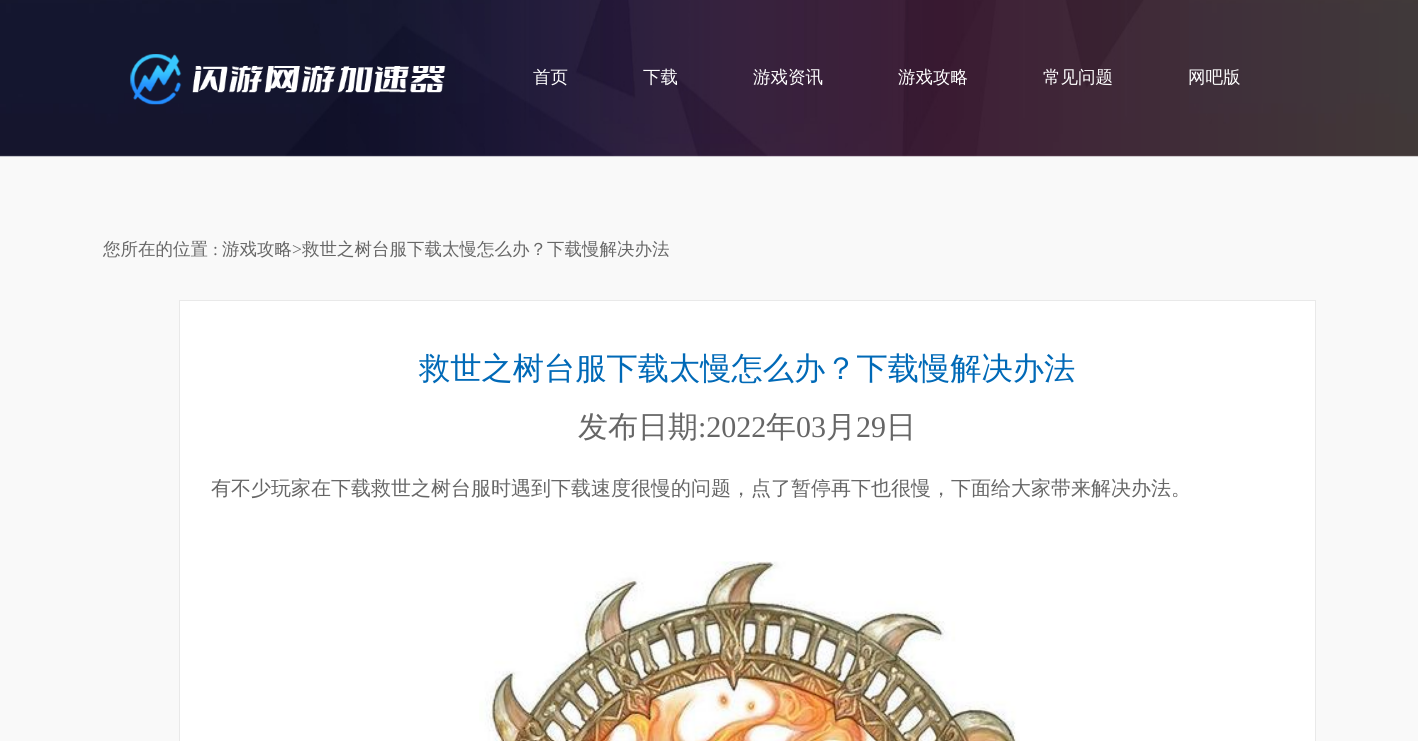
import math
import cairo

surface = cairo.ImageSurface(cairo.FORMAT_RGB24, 1418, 741)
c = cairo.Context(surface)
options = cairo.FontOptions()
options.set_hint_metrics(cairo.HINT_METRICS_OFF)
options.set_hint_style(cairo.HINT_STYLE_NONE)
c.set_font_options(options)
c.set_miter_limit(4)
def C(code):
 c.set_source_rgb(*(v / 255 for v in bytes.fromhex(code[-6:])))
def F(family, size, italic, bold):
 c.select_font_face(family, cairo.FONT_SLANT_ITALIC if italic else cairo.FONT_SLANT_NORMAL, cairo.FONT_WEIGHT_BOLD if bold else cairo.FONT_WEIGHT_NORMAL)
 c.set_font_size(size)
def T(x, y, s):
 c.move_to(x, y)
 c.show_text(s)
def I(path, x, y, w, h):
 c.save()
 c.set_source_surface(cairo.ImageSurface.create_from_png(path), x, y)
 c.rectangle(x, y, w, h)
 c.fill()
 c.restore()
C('f9f9f9')
c.paint()
I('1.png',0,0,1418,157)
I('2.png',130,54,316,51)
F('WenQuanYi Zen Hei Medium',17.5,0,0)
C('ffffff')
T(533,83,'首页')
T(643,83,'下载')
T(753,83,'游戏资讯')
T(898,83,'游戏攻略')
T(1043,83,'常见问题')
T(1188,83,'网吧版')
C('666666')
T(103,255,'您所在的位置')
F('Liberation Serif',17.5,0,0)
T(213,255,':')
F('WenQuanYi Zen Hei Medium',17.5,0,0)
T(222,255,'游戏攻略')
F('Liberation Serif',17.5,0,0)
T(292,255,'>')
F('WenQuanYi Zen Hei Medium',17.5,0,0)
T(302,255,'救世之树台服下载太慢怎么办？下载慢解决办法')
C('ffffff')
c.rectangle(179.5,300.5,1136,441)
c.fill_preserve()
C('e9e9e9')
c.set_line_width(1)
c.stroke()
F('WenQuanYi Zen Hei Medium',31.25,0,0)
C('0069b7')
T(419,379,'救世之树台服下载太慢怎么办？下载慢解决办法')
F('WenQuanYi Zen Hei Medium',30,0,0)
C('666666')
T(578,437,'发布日期')
F('Liberation Serif',30,0,0)
T(698,437,':2022')
F('WenQuanYi Zen Hei Medium',30,0,0)
T(766,437,'年')
F('Liberation Serif',30,0,0)
T(796,437,'03')
F('WenQuanYi Zen Hei Medium',30,0,0)
T(826,437,'月')
F('Liberation Serif',30,0,0)
T(856,437,'29')
F('WenQuanYi Zen Hei Medium',30,0,0)
T(886,437,'日')
F('WenQuanYi Zen Hei Medium',20,0,0)
T(211,495,'有不少玩家在下载救世之树台服时遇到下载速度很慢的问题，点了暂停再下也很慢，下面给大家带来解决办法。')
I('3.png',479,561,541,180)
surface.write_to_png('o.png')
